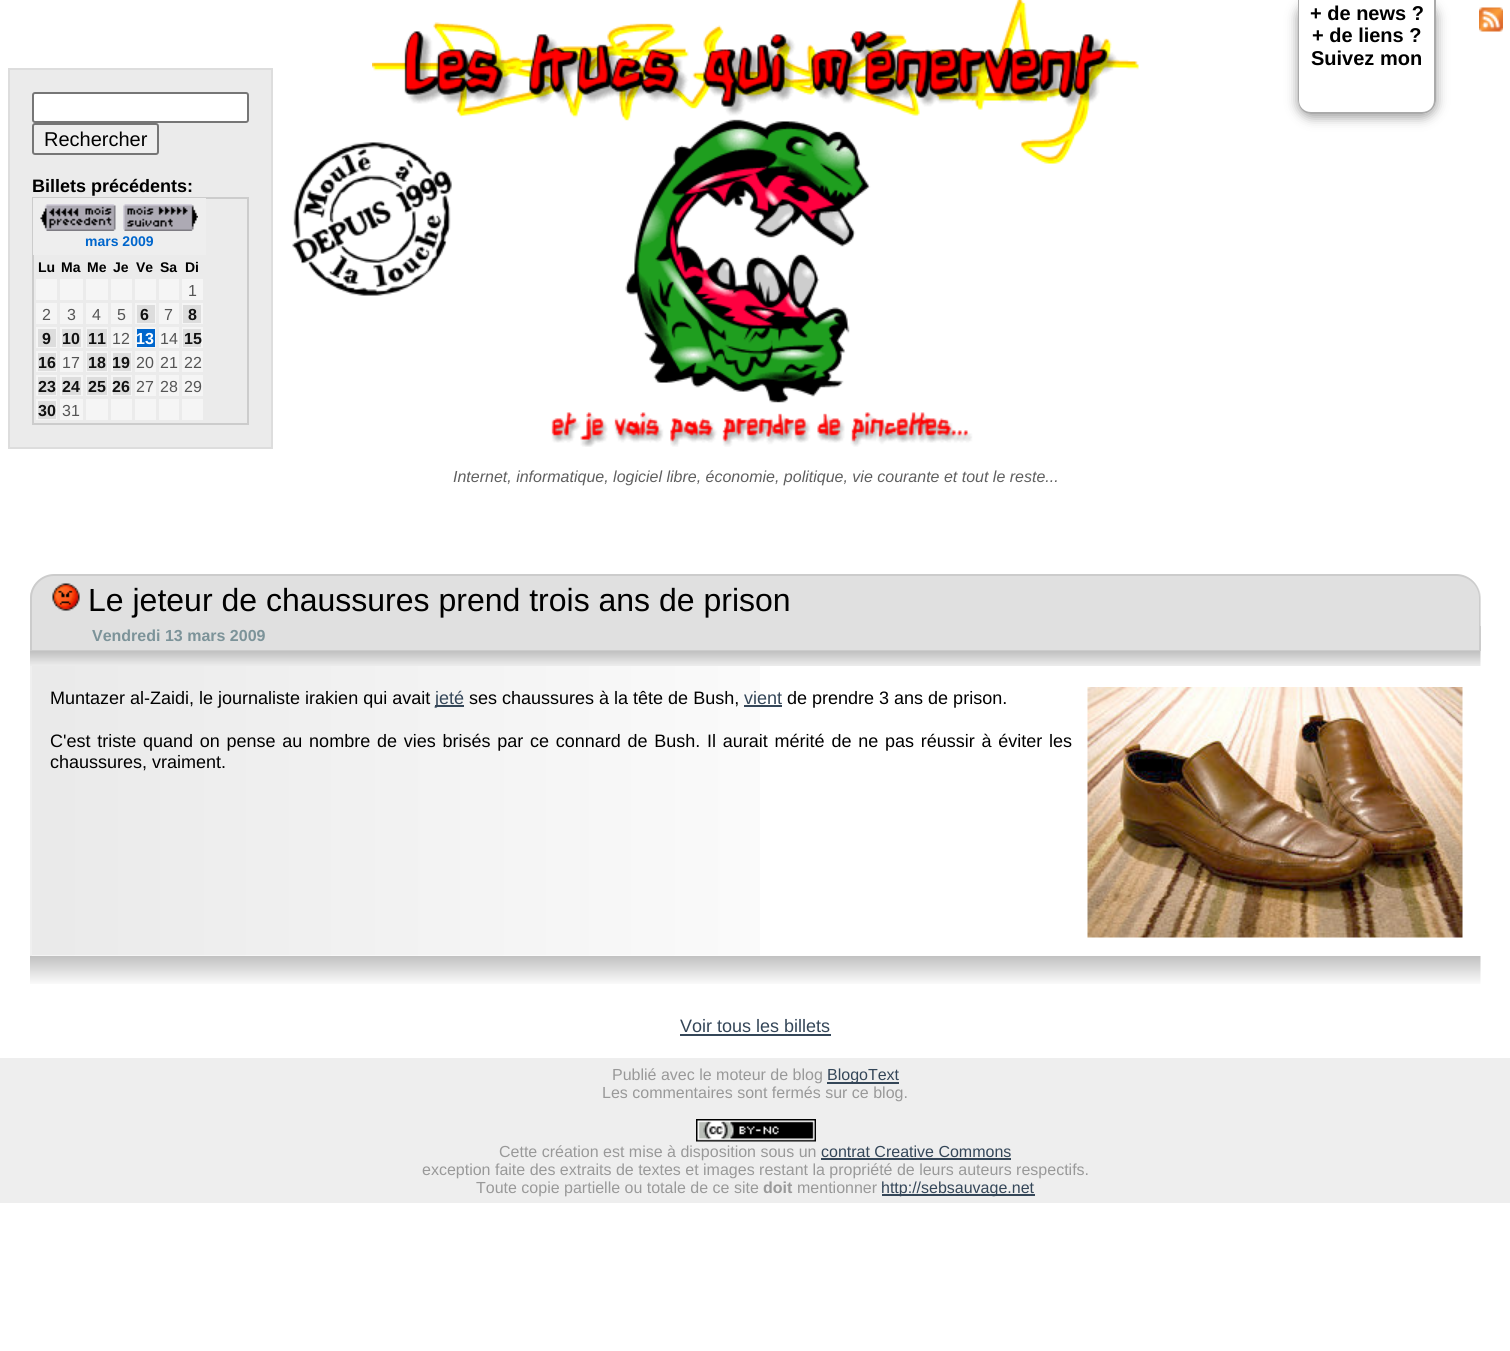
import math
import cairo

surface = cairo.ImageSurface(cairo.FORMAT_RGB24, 1510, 1351)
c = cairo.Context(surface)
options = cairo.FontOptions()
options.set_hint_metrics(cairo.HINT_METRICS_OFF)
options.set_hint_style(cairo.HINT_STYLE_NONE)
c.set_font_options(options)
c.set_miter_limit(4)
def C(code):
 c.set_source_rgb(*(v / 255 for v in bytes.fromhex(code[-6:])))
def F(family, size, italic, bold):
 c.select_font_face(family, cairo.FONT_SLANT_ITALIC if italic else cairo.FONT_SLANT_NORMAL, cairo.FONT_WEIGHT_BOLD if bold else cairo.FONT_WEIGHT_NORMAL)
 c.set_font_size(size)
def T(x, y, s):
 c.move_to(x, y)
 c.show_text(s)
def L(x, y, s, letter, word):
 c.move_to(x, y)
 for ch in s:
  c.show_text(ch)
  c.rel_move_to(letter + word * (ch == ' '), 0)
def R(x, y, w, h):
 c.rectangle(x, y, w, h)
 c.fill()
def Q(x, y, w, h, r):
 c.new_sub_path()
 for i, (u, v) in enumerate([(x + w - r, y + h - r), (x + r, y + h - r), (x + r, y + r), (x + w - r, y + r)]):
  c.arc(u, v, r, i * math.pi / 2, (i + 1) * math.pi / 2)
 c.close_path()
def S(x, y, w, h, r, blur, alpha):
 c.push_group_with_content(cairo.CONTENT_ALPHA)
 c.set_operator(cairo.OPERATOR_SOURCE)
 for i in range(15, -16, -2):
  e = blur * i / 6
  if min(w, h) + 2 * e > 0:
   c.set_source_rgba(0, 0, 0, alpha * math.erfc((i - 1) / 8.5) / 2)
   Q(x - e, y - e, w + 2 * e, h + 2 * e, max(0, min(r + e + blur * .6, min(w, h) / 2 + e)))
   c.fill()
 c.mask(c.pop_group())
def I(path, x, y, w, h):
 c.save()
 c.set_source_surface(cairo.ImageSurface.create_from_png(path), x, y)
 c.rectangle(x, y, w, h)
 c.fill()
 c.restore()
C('ffffff')
c.paint()
c.save()
c.set_fill_rule(cairo.FILL_RULE_EVEN_ODD)
c.new_path()
c.move_to(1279,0)
c.line_to(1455,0)
c.line_to(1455,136)
c.line_to(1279,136)
c.close_path()
c.move_to(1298,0)
c.line_to(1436,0)
c.line_to(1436,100)
c.curve_to(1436,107.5,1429.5,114,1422,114)
c.line_to(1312,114)
c.curve_to(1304.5,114,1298,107.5,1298,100)
c.close_path()
c.clip()
C('333333')
S(1298,3,138,114,14,6,.5)
c.restore()
C('aaaaaa')
c.set_fill_rule(cairo.FILL_RULE_EVEN_ODD)
c.new_path()
c.move_to(1298,0)
c.line_to(1436,0)
c.line_to(1436,100)
c.curve_to(1436,108,1429,114,1422,114)
c.line_to(1311,114)
c.curve_to(1304,114,1298,108,1298,100)
c.close_path()
c.move_to(1299,0)
c.line_to(1434,0)
c.line_to(1434,100)
c.curve_to(1434,107,1429,112,1422,112)
c.line_to(1311,112)
c.curve_to(1304,112,1299,107,1299,100)
c.close_path()
c.fill()
F('Liberation Sans',20,0,1)
C('000000')
T(1310,20,'+ de news ?')
T(1312,42,'+ de liens ?')
T(1311,65,'Suivez mon')
I('1.png',1479,7,24,25)
C('ebebeb')
c.rectangle(9,69,263,379)
c.fill_preserve()
C('dddddd')
c.stroke()
C('ffffff')
Q(33,93,215,29,2)
c.fill_preserve()
C('767676')
c.stroke()
C('efefef')
Q(33,124,125,30,2)
c.fill_preserve()
C('767676')
c.stroke()
F('Liberation Sans',20,0,0)
C('000000')
T(44,146,'Rechercher')
F('Liberation Sans',18,0,1)
T(32,192,'Billets précédents:')
c.rectangle(33,198,215,226)
C('cccccc')
c.stroke()
C('eeeeee')
R(33,198,173,57)
I('2.png',40,204,76,27)
I('3.png',123,204,75,27)
F('Liberation Sans',14,0,1)
C('0066cc')
T(85,246,'mars 2009')
C('000000')
T(38,272,'Lu')
T(61,272,'Ma')
T(87,272,'Me')
T(113,272,'Je')
T(136,272,'Ve')
T(160,272,'Sa')
T(185,272,'Di')
C('f5f5f5')
R(36,279,21,21)
R(60,279,23,21)
R(86,279,22,21)
R(111,279,21,21)
R(135,279,21,21)
R(159,279,20,21)
R(182,279,21,21)
F('Liberation Sans',16,0,0)
C('555555')
T(188,296,'1')
C('f5f5f5')
R(36,303,21,21)
C('555555')
T(42,320,'2')
C('f5f5f5')
R(60,303,23,21)
C('555555')
T(67,320,'3')
C('f5f5f5')
R(86,303,22,21)
C('555555')
T(92,320,'4')
C('f5f5f5')
R(111,303,21,21)
C('555555')
T(117,320,'5')
C('f5f5f5')
R(135,303,21,21)
C('dddddd')
R(137,305,18,18)
F('Liberation Sans',16,0,1)
C('111111')
T(140,320,'6')
C('f5f5f5')
R(159,303,20,21)
F('Liberation Sans',16,0,0)
C('555555')
T(164,320,'7')
C('f5f5f5')
R(182,303,21,21)
C('dddddd')
R(183,305,18,18)
F('Liberation Sans',16,0,1)
C('111111')
T(188,320,'8')
C('f5f5f5')
R(36,327,21,21)
C('dddddd')
R(38,329,18,18)
C('111111')
T(42,344,'9')
C('f5f5f5')
R(60,327,23,21)
C('dddddd')
R(62,329,19,18)
C('111111')
T(62,344,'10')
C('f5f5f5')
R(86,327,22,21)
C('dddddd')
R(87,329,20,18)
C('111111')
T(88,344,'11')
C('f5f5f5')
R(111,327,21,21)
F('Liberation Sans',16,0,0)
C('555555')
T(112,344,'12')
C('f5f5f5')
R(135,327,21,21)
C('0066cc')
R(137,329,18,18)
F('Liberation Sans',16,0,1)
C('ffffff')
T(136,344,'13')
C('f5f5f5')
R(159,327,20,21)
F('Liberation Sans',16,0,0)
C('555555')
T(160,344,'14')
C('f5f5f5')
R(182,327,21,21)
C('dddddd')
R(183,329,18,18)
F('Liberation Sans',16,0,1)
C('111111')
T(184,344,'15')
C('f5f5f5')
R(36,351,21,21)
C('dddddd')
R(38,353,18,18)
C('111111')
T(38,368,'16')
C('f5f5f5')
R(60,351,23,21)
F('Liberation Sans',16,0,0)
C('555555')
T(62,368,'17')
C('f5f5f5')
R(86,351,22,21)
C('dddddd')
R(87,353,20,18)
F('Liberation Sans',16,0,1)
C('111111')
T(88,368,'18')
C('f5f5f5')
R(111,351,21,21)
C('dddddd')
R(113,353,18,18)
C('111111')
T(112,368,'19')
C('f5f5f5')
R(135,351,21,21)
F('Liberation Sans',16,0,0)
C('555555')
T(136,368,'20')
C('f5f5f5')
R(159,351,20,21)
C('555555')
T(160,368,'21')
C('f5f5f5')
R(182,351,21,21)
C('555555')
T(184,368,'22')
C('f5f5f5')
R(36,375,21,21)
C('dddddd')
R(38,377,18,18)
F('Liberation Sans',16,0,1)
C('111111')
T(38,392,'23')
C('f5f5f5')
R(60,375,23,21)
C('dddddd')
R(62,377,19,18)
C('111111')
T(62,392,'24')
C('f5f5f5')
R(86,375,22,21)
C('dddddd')
R(87,377,20,18)
C('111111')
T(88,392,'25')
C('f5f5f5')
R(111,375,21,21)
C('dddddd')
R(113,377,18,18)
C('111111')
T(112,392,'26')
C('f5f5f5')
R(135,375,21,21)
F('Liberation Sans',16,0,0)
C('555555')
T(136,392,'27')
C('f5f5f5')
R(159,375,20,21)
C('555555')
T(160,392,'28')
C('f5f5f5')
R(182,375,21,21)
C('555555')
T(184,392,'29')
C('f5f5f5')
R(36,399,21,21)
C('dddddd')
R(38,401,18,18)
F('Liberation Sans',16,0,1)
C('111111')
T(38,416,'30')
C('f5f5f5')
R(60,399,23,21)
F('Liberation Sans',16,0,0)
C('555555')
T(62,416,'31')
C('f5f5f5')
R(86,399,22,21)
R(111,399,21,21)
R(135,399,21,21)
R(159,399,20,21)
R(182,399,21,21)
I('5.png',372,0,767,447)
I('4.png',292,142,160,154)
F('Liberation Sans',16,1,0)
C('5f5f5f')
T(453,482,'Internet, informatique, logiciel libre, économie, politique, vie courante et tout le reste...')
C('e0e0e0')
c.new_path()
c.move_to(54,575)
c.line_to(1457,575)
c.curve_to(1470.5,575,1481,585.5,1481,599)
c.line_to(1481,626)
c.line_to(30,626)
c.line_to(30,599)
c.curve_to(30,585.5,40.5,575,54,575)
c.close_path()
c.fill()
C('cccccc')
c.new_path()
c.move_to(54,574)
c.line_to(1456,574)
c.curve_to(1470,574,1480,585,1480,598)
c.line_to(1480,626)
c.line_to(30,626)
c.line_to(30,598)
c.curve_to(30,585,41,574,54,574)
c.close_path()
c.move_to(54,576)
c.line_to(1456,576)
c.curve_to(1469,576,1479,586,1479,598)
c.line_to(1479,626)
c.line_to(32,626)
c.line_to(32,598)
c.curve_to(32,586,42,576,54,576)
c.close_path()
c.fill()
I('6.png',52,583,28,28)
F('Liberation Sans',32,0,0)
C('000000')
T(88,611,'Le jeteur de chaussures prend trois ans de prison')
C('e0e0e0')
R(32,626,1447,24)
C('cccccc')
R(1479,626,2,25)
R(30,650,1451,1)
R(30,626,2,25)
F('Liberation Sans',16,0,1)
C('7c9399')
T(92,641,'Vendredi 13 mars 2009')
I('7.png',30,651,1451,15)
I('8.png',32,666,728,290)
C('efefef')
R(30,666,2,290)
F('Liberation Sans',18,0,0)
C('000000')
T(50,704,'Muntazer al-Zaidi, le journaliste irakien qui avait')
C('344658')
R(435,705,29,2)
T(435,704,'jeté')
C('000000')
T(469,704,'ses chaussures à la tête de Bush,')
C('344658')
T(744,704,'vient')
R(744,705,38,2)
C('000000')
T(787,704,'de prendre 3 ans de prison.')
I('9.png',1087,687,376,251)
L(50,747,'C\'est triste quand on pense au nombre de vies brisés par ce connard de Bush. Il aurait mérité de ne pas réussir à éviter les',0,1.75)
T(50,768,'chaussures, vraiment.')
I('10.png',30,956,1451,28)
C('344658')
T(680,1032,'Voir tous les billets')
R(680,1034,151,2)
C('eeeeee')
R(0,1058,1510,145)
F('Liberation Sans',16,0,0)
C('999999')
T(612,1080,'Publié avec le moteur de blog')
C('344658')
R(827,1082,72,2)
T(827,1080,'BlogoText')
C('999999')
T(602,1098,'Les commentaires sont fermés sur ce blog.')
I('11.png',696,1119,120,23)
T(499,1157,'Cette création est mise à disposition sous un')
C('344658')
T(821,1157,'contrat Creative Commons')
R(821,1158,190,2)
C('999999')
T(422,1175,'exception faite des extraits de textes et images restant la propriété de leurs auteurs respectifs.')
T(476,1193,'Toute copie partielle ou totale de ce site')
F('Liberation Sans',16,0,1)
T(763,1193,'doit')
F('Liberation Sans',16,0,0)
T(797,1193,'mentionner')
C('344658')
R(882,1194,153,2)
T(881,1193,'http://sebsauvage.net')
surface.write_to_png('o.png')
